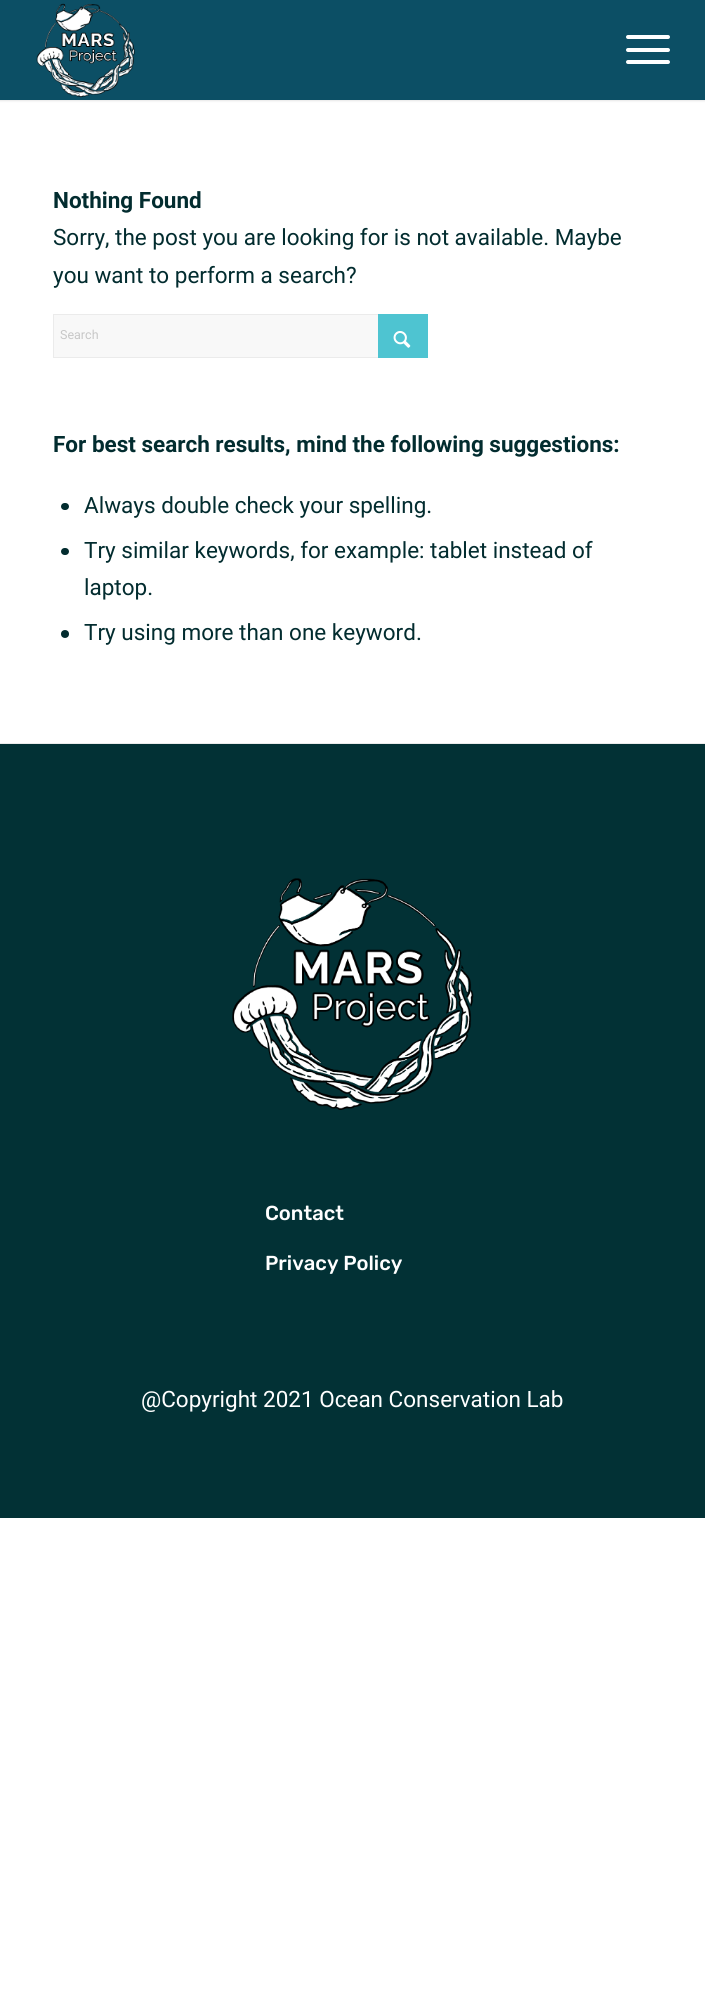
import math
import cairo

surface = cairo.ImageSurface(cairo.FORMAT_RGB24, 705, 1994)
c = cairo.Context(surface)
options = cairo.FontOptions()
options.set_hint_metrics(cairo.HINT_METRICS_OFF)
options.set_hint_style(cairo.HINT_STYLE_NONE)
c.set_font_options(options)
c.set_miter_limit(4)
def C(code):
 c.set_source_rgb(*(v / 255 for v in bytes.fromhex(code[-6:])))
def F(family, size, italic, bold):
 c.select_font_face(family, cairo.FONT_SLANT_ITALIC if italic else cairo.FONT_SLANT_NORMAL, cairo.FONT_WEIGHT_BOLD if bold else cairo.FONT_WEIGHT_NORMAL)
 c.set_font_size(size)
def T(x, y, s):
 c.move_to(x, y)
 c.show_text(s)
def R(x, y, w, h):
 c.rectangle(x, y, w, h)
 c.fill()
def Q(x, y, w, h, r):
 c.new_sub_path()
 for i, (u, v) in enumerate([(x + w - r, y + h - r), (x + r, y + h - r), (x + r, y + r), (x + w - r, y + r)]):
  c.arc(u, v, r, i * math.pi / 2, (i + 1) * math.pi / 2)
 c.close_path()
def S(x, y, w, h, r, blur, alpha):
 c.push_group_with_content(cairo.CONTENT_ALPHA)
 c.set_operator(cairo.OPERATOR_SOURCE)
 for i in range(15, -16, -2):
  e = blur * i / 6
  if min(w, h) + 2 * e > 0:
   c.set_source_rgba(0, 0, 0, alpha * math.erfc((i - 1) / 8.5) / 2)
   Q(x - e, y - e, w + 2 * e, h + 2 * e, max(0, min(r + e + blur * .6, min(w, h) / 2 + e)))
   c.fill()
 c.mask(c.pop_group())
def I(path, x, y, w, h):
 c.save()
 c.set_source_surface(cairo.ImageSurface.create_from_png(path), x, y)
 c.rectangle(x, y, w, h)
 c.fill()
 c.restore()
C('ffffff')
c.paint()
C('000000')
S(-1,-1,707,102,0,1,.1)
C('0c4f65')
R(0,0,705,100)
I('1.png',36,3,99,95)
C('ffffff')
Q(626,48,44,4,2)
c.fill()
Q(626,35,44,4,2)
c.fill()
Q(626,60,44,4,2)
c.fill()
F('Roboto',22.5,0,1)
C('022c2f')
T(53,208,'Nothing Found')
F('Roboto',22.5,0,0)
T(53,245,'Sorry, the post you are looking for is not available. Maybe')
T(53,283,'you want to perform a search?')
C('f8f8f8')
R(54,315,324,42)
c.rectangle(53.5,314.5,374,43)
C('ebebeb')
c.set_line_width(1)
c.stroke()
F('Roboto',12.5,0,0)
C('c7c7c7')
T(60,339,'Search')
C('4ec4d1')
R(378,314,50,44)
I('2.png',393,331,18,17)
F('Roboto',22.5,0,1)
C('022c2f')
T(53,452,'For best search results, mind the following suggestions:')
Q(61,503,8,7,3.5)
c.fill()
F('Roboto',22.5,0,0)
T(84,513,'Always double check your spelling.')
Q(61,548,8,7,3.5)
c.fill()
T(84,558,'Try similar keywords, for example: tablet instead of')
T(84,595,'laptop.')
c.new_path()
c.arc(65,634,4,0,2 * math.pi)
c.fill()
T(84,640,'Try using more than one keyword.')
C('023135')
R(0,744,705,774)
C('ebebeb')
R(0,743,705,1)
I('3.png',232,878,242,232)
F('Rubik Medium',20.25,0,0)
C('ffffff')
T(265,1220,'Contact')
T(265,1270,'Privacy Policy')
F('Roboto',22.5,0,0)
T(141,1407,'@Copyright 2021 Ocean Conservation Lab')
surface.write_to_png('o.png')
